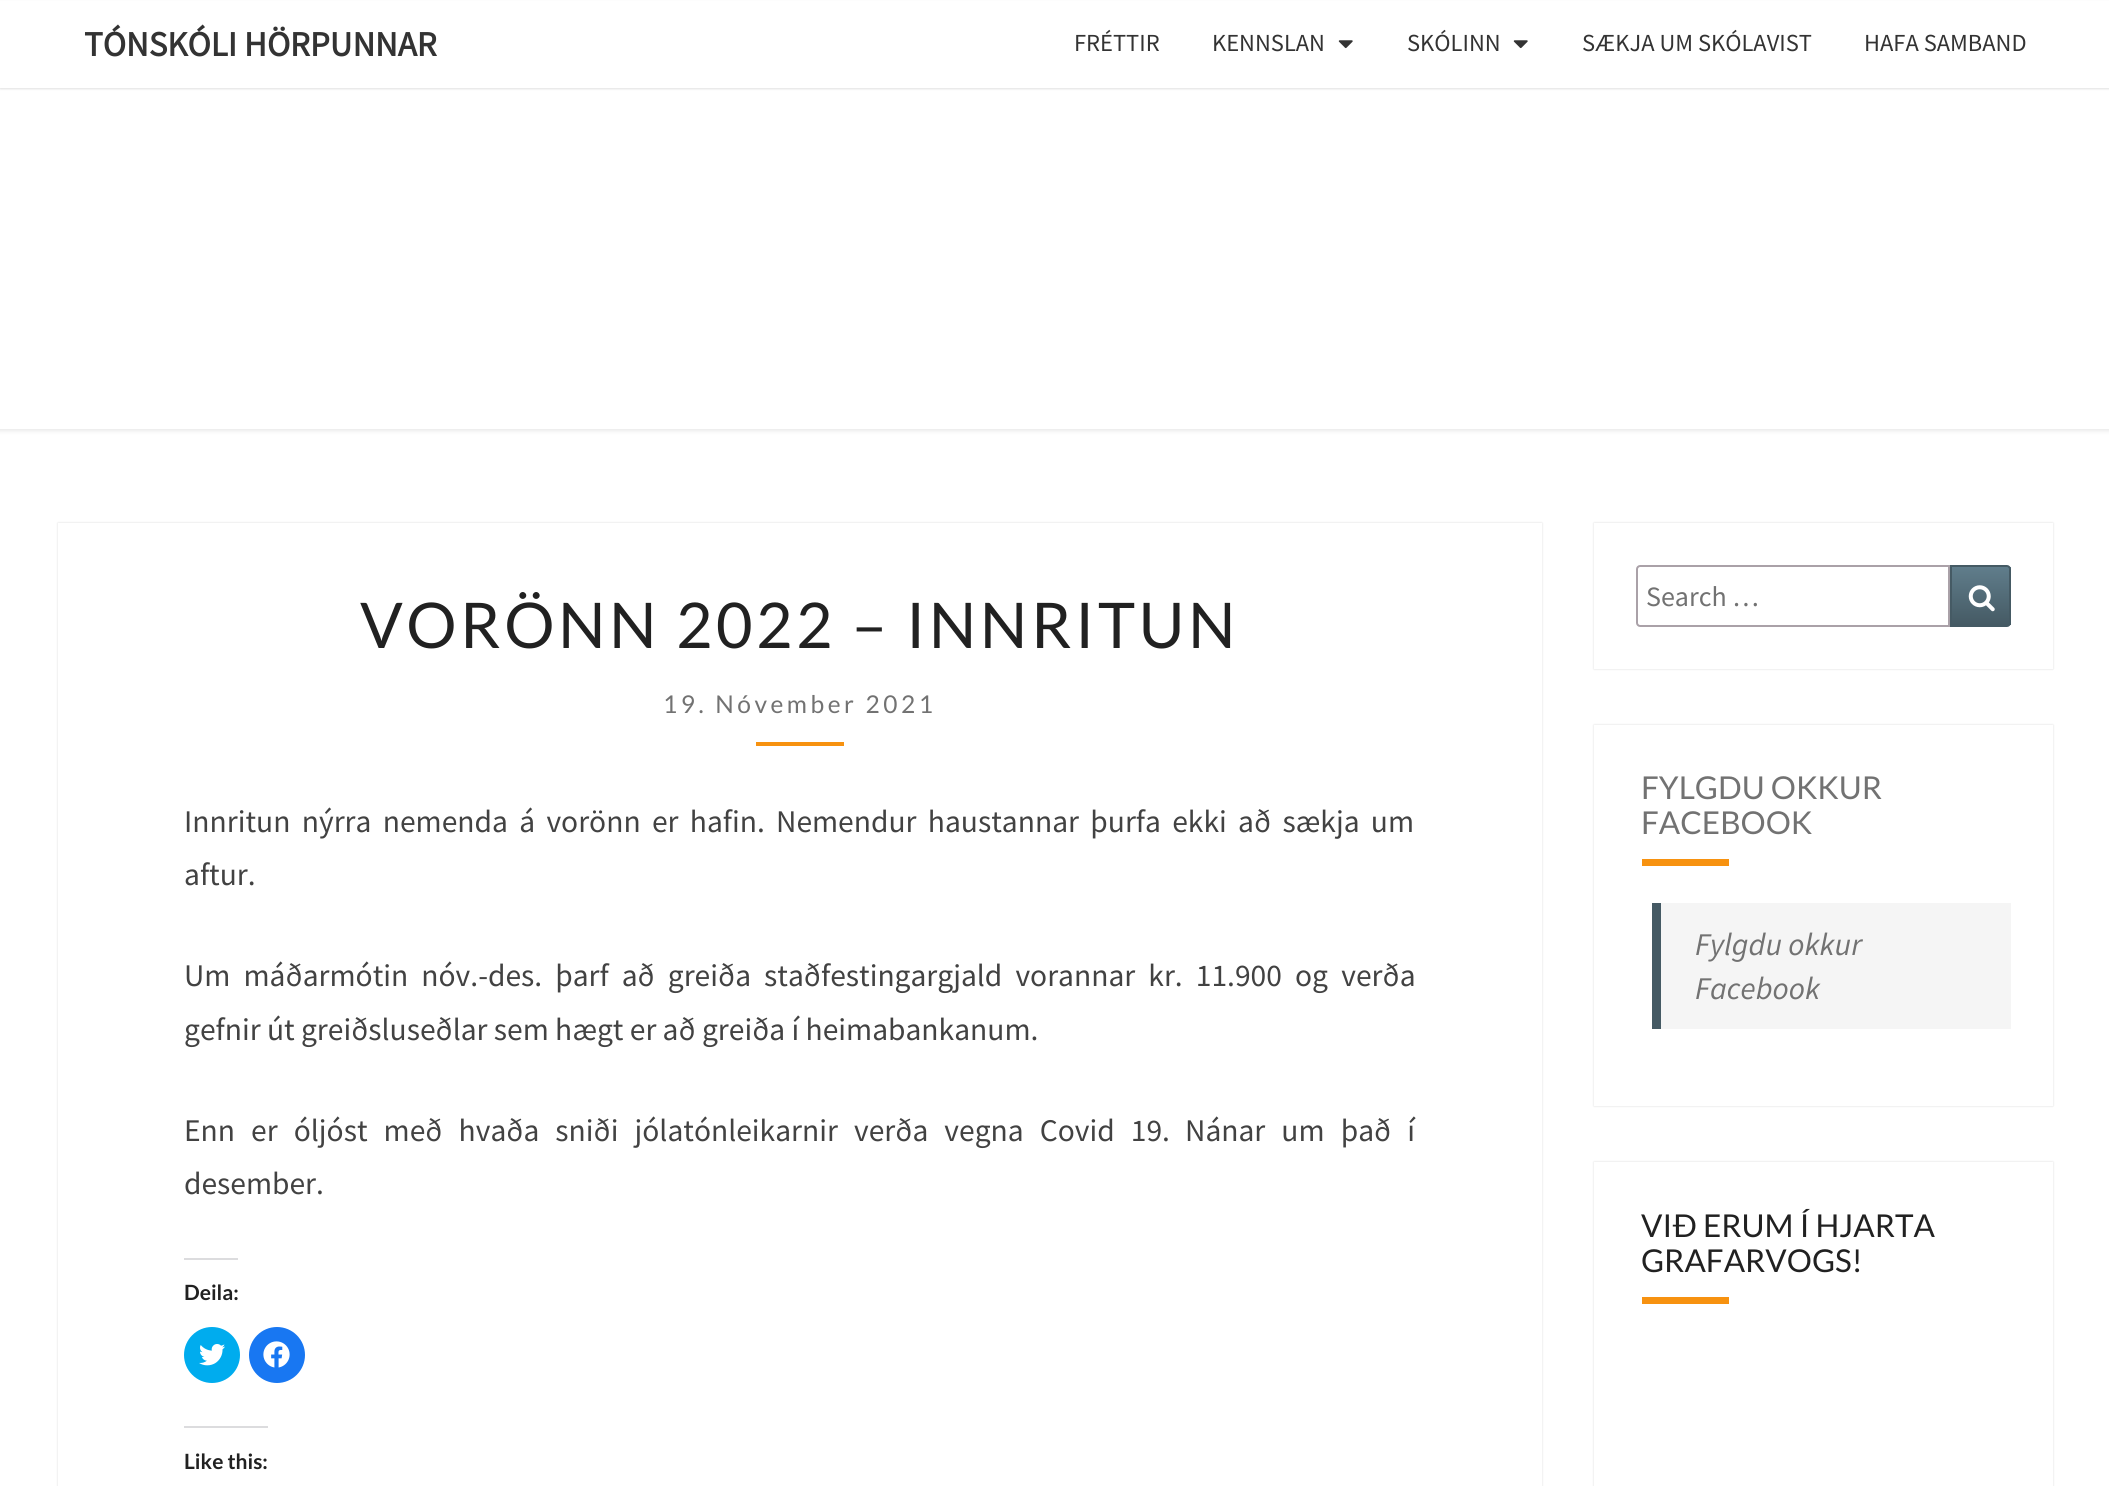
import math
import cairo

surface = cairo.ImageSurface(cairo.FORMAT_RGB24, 2109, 1486)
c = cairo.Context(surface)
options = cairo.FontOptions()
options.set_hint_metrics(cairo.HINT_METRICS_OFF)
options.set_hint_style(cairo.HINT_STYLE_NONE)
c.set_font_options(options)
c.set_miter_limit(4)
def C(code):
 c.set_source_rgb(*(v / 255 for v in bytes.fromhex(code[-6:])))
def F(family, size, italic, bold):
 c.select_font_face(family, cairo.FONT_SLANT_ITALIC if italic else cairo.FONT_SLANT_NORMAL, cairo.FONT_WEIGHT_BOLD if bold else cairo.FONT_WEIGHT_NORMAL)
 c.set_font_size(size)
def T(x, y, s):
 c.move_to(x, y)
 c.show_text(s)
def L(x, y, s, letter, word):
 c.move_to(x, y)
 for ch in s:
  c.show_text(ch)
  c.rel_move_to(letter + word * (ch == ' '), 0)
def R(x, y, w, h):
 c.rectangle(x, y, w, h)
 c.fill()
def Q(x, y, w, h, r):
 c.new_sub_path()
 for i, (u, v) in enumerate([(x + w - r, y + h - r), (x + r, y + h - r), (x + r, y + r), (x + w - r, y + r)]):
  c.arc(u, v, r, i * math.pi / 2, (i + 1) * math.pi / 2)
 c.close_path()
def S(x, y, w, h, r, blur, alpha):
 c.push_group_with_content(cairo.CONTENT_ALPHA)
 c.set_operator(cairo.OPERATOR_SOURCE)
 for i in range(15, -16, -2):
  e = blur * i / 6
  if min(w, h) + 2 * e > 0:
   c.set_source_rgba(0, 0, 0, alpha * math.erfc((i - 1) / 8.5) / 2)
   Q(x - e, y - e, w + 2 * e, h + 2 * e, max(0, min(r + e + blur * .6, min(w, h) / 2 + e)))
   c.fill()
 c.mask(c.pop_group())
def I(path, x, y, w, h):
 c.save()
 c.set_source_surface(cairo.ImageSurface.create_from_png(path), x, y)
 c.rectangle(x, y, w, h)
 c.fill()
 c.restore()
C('ffffff')
c.paint()
c.save()
c.set_fill_rule(cairo.FILL_RULE_EVEN_ODD)
c.new_path()
c.move_to(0,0)
c.line_to(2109,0)
c.line_to(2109,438)
c.line_to(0,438)
c.close_path()
c.move_to(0,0)
c.line_to(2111,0)
c.line_to(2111,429)
c.line_to(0,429)
c.close_path()
c.clip()
C('b6b6b6')
S(-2,-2,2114,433,0,2,.3)
c.restore()
C('646464')
S(0,2,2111,87,0,1,.2)
C('ffffff')
R(0,1,2109,87)
F('Source Sans Pro',35,0,1)
C('333333')
T(84,56,'TÓNSKÓLI HÖRPUNNAR')
F('Source Sans Pro',24.5,0,0)
T(1074,51,'FRÉTTIR')
T(1212,51,'KENNSLAN')
I('1.png',1338,40,15,9)
T(1407,51,'SKÓLINN')
I('1.png',1513,40,15,9)
T(1582,51,'SÆKJA UM SKÓLAVIST')
T(1864,51,'HAFA SAMBAND')
C('000000')
S(58,523,1484,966,0,1,.15)
C('ffffff')
R(58,523,1484,963)
F('Lato',63,0,0)
C('212121')
L(360,648,'VORÖNN 2022 – INNRITUN',3.5,0)
F('Lato',24.5,0,0)
C('727272')
L(663,713,'19. Nóvember 2021',3.5,0)
C('f79210')
R(756,742,88,4)
F('Source Sans Pro',31.5,0,0)
C('424242')
L(184,832,'Innritun nýrra nemenda á vorönn er hafin.',0,5)
L(776,832,'Nemendur haustannar þurfa ekki að sækja um',0,5)
T(184,885,'aftur.')
L(184,986,'Um máðarmótin nóv.-des. þarf að greiða staðfestingargjald vorannar kr. 11.900',0,6.75)
L(1295,986,'og verða',0,7)
T(184,1040,'gefnir út greiðsluseðlar sem hægt er að greiða í heimabankanum.')
L(184,1141,'Enn er óljóst með hvaða sniði jólatónleikarnir verða vegna Covid 19.',0,9.75)
L(1185,1141,'Nánar um það í',0,9.75)
T(184,1194,'desember.')
C('dcdcde')
R(184,1258,54,2)
F('Lato',21,0,1)
C('212121')
T(184,1300,'Deila:')
C('00acee')
c.new_path()
c.arc(212,1355,28,0,2 * math.pi)
c.fill()
I('2.png',199,1344,26,22)
C('1877f2')
c.arc(277,1355,28,0,2 * math.pi)
c.fill()
I('3.png',263,1341,27,27)
C('dcdcde')
R(184,1426,84,2)
C('212121')
T(184,1469,'Like this:')
C('000000')
S(1594,523,459,146,0,1,.15)
C('ffffff')
R(1594,523,459,146)
c.new_path()
c.move_to(1640,566)
c.line_to(1949,566)
c.line_to(1949,626)
c.line_to(1640,626)
c.curve_to(1638.5,626,1637,624.5,1637,623)
c.line_to(1637,569)
c.curve_to(1637,567.5,1638.5,566,1640,566)
c.close_path()
C('aaa1a8')
c.stroke()
F('Source Sans Pro',28,0,0)
C('727272')
T(1646,606,'Search …')
gradient = cairo.LinearGradient(1980,567,1980,625)
gradient.add_color_stop_rgba(0,0.376,0.49,0.545,1)
gradient.add_color_stop_rgba(1,0.271,0.353,0.392,1)
c.set_source(gradient)
R(1952,567,59,58)
c.new_path()
c.move_to(1951,566)
c.line_to(2007,566)
c.curve_to(2008.5,566,2010,567.5,2010,569)
c.line_to(2010,623)
c.curve_to(2010,624.5,2008.5,626,2007,626)
c.line_to(1951,626)
c.close_path()
C('455a64')
c.stroke()
I('4.png',1968,585,27,27)
C('000000')
S(1594,725,459,381,0,1,.15)
C('ffffff')
R(1594,725,459,381)
F('Lato',31.5,0,0)
C('727272')
T(1641,799,'FYLGDU OKKUR')
T(1641,834,'FACEBOOK')
C('f79210')
R(1642,859,87,7)
C('f5f5f5')
R(1661,903,350,126)
C('455a64')
R(1652,903,9,126)
F('Source Sans Pro',31.5,1,0)
C('727272')
T(1695,955,'Fylgdu okkur')
T(1695,999,'Facebook')
C('000000')
S(1594,1162,459,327,0,1,.15)
C('ffffff')
R(1594,1162,459,324)
F('Lato',31.5,0,0)
C('212121')
T(1641,1237,'VIÐ ERUM Í HJARTA')
T(1641,1272,'GRAFARVOGS!')
C('f79210')
R(1642,1297,87,7)
surface.write_to_png('o.png')
